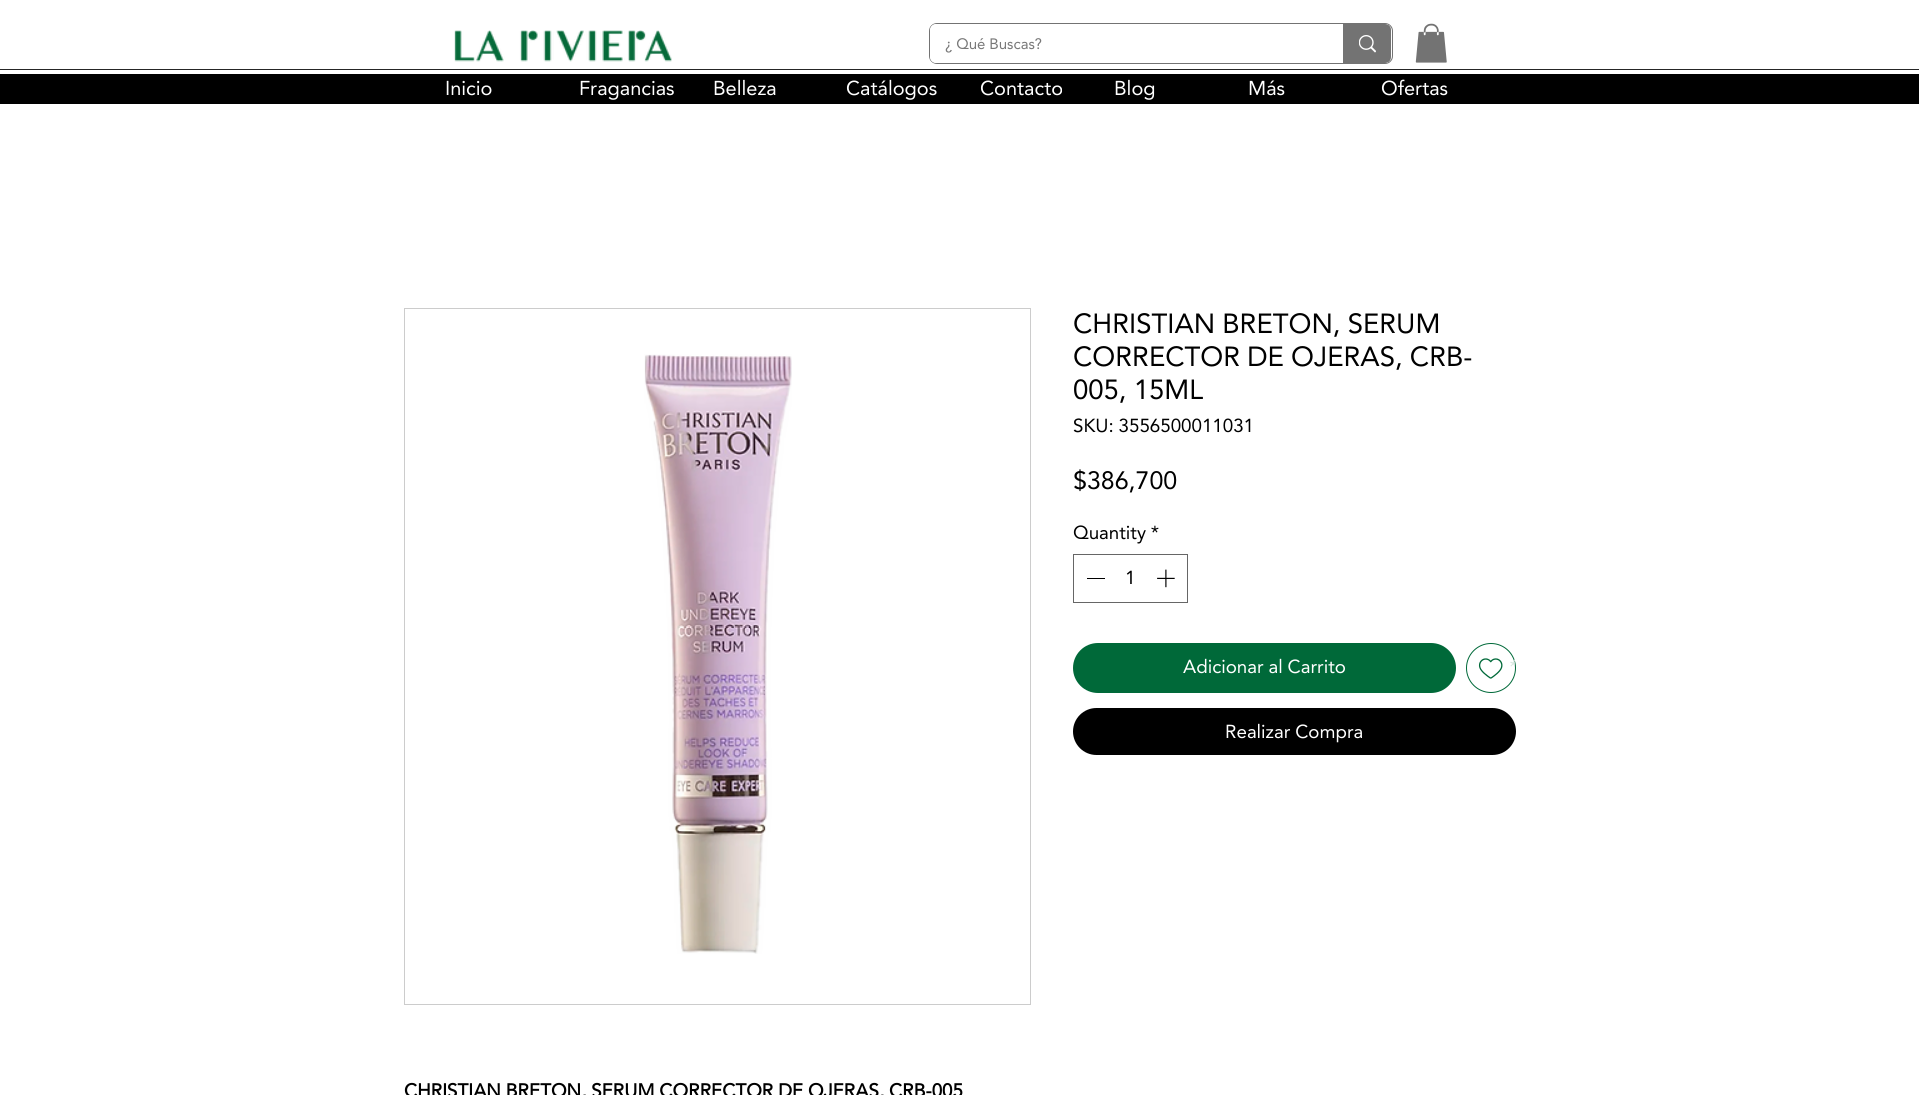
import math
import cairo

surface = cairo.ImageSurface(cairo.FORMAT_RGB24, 1919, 1095)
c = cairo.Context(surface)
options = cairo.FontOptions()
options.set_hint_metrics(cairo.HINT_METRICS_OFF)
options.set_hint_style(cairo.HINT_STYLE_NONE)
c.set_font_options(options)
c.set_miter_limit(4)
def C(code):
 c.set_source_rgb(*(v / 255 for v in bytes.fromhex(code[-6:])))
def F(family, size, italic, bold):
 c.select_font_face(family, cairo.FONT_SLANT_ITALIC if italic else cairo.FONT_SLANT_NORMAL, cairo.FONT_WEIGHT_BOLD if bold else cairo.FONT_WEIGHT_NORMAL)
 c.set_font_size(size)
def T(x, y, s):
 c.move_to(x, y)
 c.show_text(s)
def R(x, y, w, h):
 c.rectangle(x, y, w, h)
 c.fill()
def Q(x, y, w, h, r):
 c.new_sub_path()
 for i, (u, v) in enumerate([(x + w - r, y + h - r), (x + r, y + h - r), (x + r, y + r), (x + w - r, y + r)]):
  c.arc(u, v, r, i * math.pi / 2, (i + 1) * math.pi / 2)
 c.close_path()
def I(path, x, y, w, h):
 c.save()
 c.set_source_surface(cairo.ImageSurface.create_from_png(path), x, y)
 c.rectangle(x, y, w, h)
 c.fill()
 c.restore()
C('ffffff')
c.paint()
I('1.png',454,30,218,32)
Q(929.5,23.5,463,40,7.5)
C('737373')
c.set_line_width(1)
c.stroke()
C('ffffff')
Q(930,24,461,39,6)
c.fill()
F('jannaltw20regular',15,0,0)
C('787878')
T(945,49,'¿ Qué Buscas?')
C('737373')
c.new_path()
c.move_to(1343,24)
c.line_to(1385,24)
c.curve_to(1388.5,24,1391,26.5,1391,30)
c.line_to(1391,57)
c.curve_to(1391,60.5,1388.5,63,1385,63)
c.line_to(1343,63)
c.close_path()
c.fill()
I('2.png',1359,35,17,18)
I('3.png',1415,23,32,40)
C('262626')
R(0,69,1919,1)
C('000000')
R(0,74,1919,30)
F('jannaltw20regular',20,0,0)
C('ffffff')
T(445,95,'Inicio')
T(579,95,'Fragancias')
T(713,95,'Belleza')
T(846,95,'Catálogos')
T(980,95,'Contacto')
T(1114,95,'Blog')
T(1248,95,'Más')
T(1381,95,'Ofertas')
F('jannaltw20regular',27.5,0,0)
C('000000')
T(1073,333,'CHRISTIAN BRETON, SERUM')
T(1073,366,'CORRECTOR DE OJERAS, CRB-')
T(1073,399,'005, 15ML')
F('jannaltw20regular',18.75,0,0)
T(1073,432,'SKU: 3556500011031')
F('jannaltw20regular',25,0,0)
T(1073,489,'$386,700')
F('jannaltw20regular',18.75,0,0)
T(1073,539,'Quantity *')
c.rectangle(1073.5,554.5,114,48)
C('666666')
c.stroke()
C('000000')
R(1087,578,18,1)
T(1125,584,'1')
I('4.png',1157,569,18,19)
C('006939')
Q(1073,643,383,50,25)
c.fill()
C('ffffff')
T(1183,673,'Adicionar al Carrito')
c.new_path()
c.arc(1491,668,24.5,0,2 * math.pi)
C('006939')
c.stroke()
I('5.png',1478,658,25,21)
c.save()
c.rectangle(1468,648,47,40)
c.clip()
F('jannaltw20regular',18.75,1,0)
C('d9e9e1')
T(1507,673,'*')
c.restore()
C('000000')
Q(1073,708,443,47,23.5)
c.fill()
C('ffffff')
T(1225,738,'Realizar Compra')
c.rectangle(404.5,308.5,626,696)
C('cccccc')
c.stroke()
I('6.png',644,354,148,600)
F('jannaltw20regular',18.75,0,1)
C('000000')
T(404,1097,'CHRISTIAN BRETON, SERUM CORRECTOR DE OJERAS, CRB-005')
surface.write_to_png('o.png')
